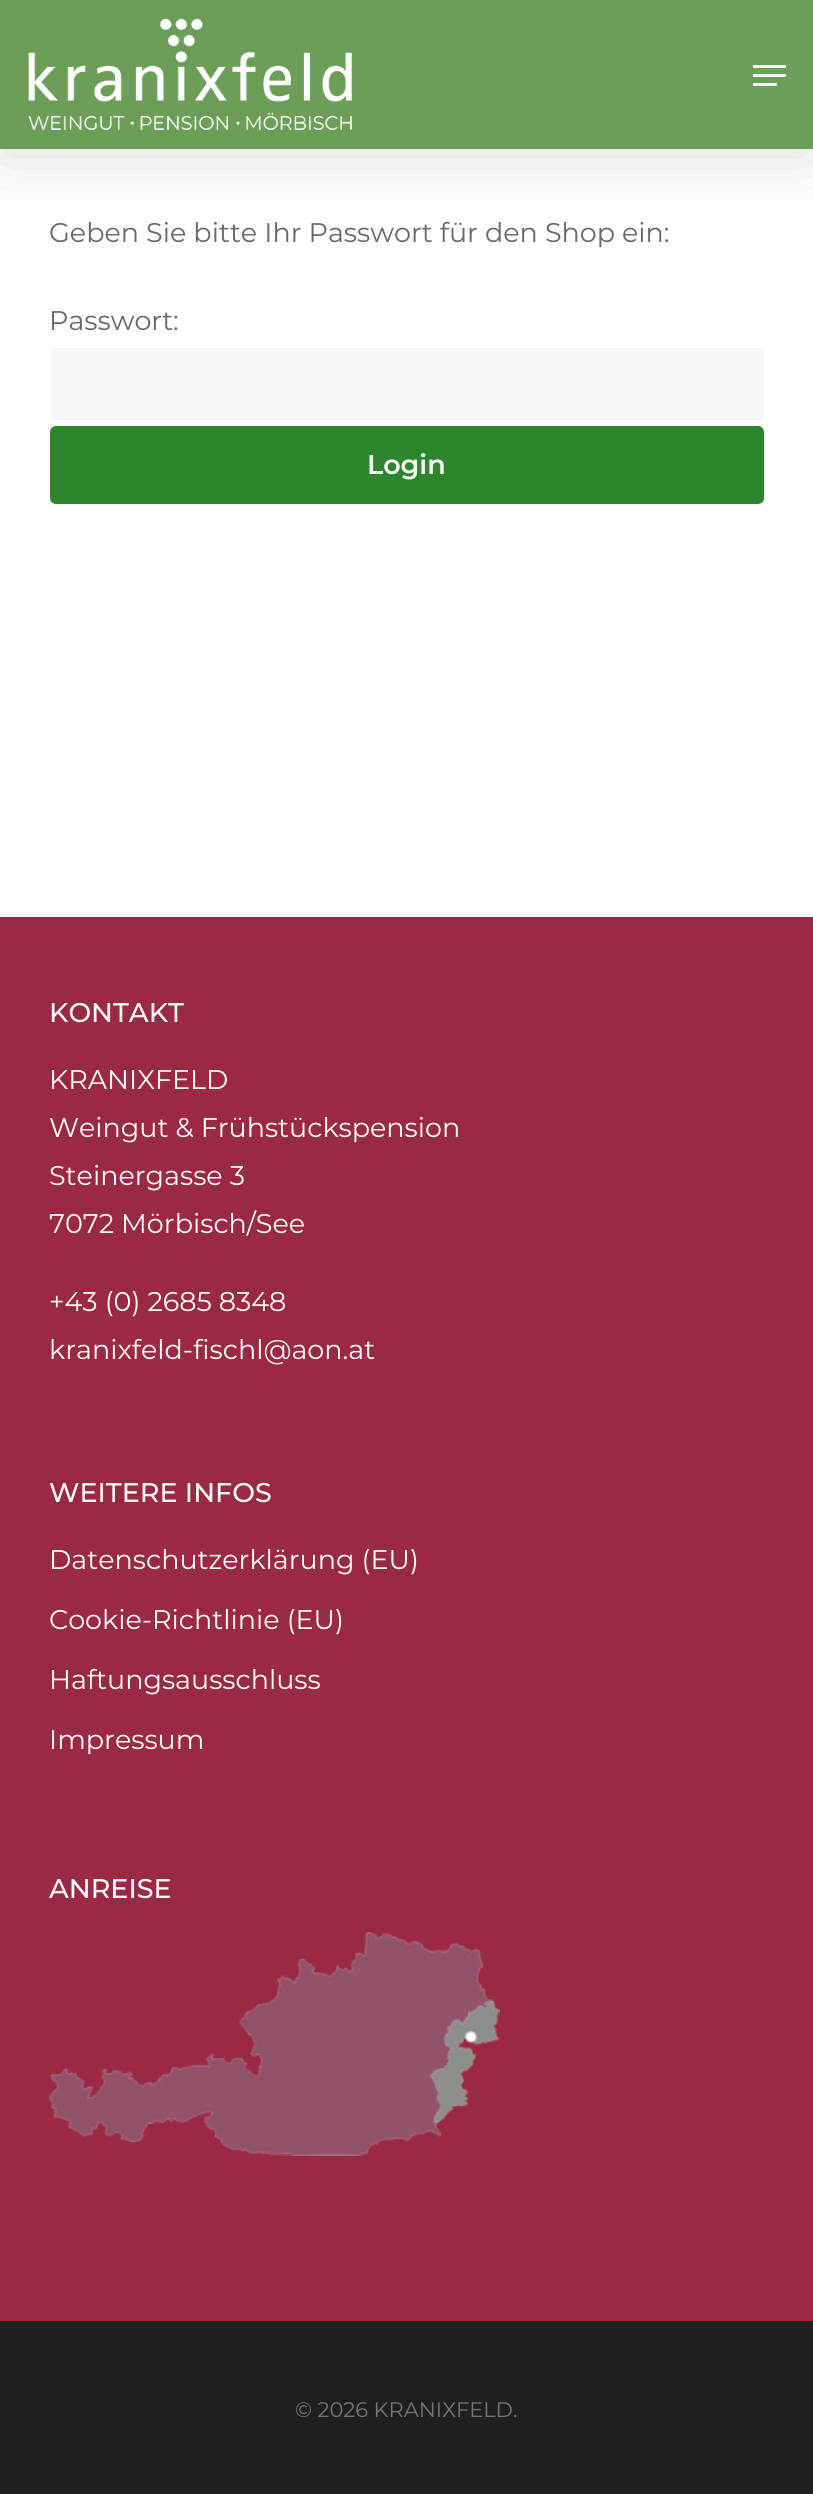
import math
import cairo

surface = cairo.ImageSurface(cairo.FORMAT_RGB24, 813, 2494)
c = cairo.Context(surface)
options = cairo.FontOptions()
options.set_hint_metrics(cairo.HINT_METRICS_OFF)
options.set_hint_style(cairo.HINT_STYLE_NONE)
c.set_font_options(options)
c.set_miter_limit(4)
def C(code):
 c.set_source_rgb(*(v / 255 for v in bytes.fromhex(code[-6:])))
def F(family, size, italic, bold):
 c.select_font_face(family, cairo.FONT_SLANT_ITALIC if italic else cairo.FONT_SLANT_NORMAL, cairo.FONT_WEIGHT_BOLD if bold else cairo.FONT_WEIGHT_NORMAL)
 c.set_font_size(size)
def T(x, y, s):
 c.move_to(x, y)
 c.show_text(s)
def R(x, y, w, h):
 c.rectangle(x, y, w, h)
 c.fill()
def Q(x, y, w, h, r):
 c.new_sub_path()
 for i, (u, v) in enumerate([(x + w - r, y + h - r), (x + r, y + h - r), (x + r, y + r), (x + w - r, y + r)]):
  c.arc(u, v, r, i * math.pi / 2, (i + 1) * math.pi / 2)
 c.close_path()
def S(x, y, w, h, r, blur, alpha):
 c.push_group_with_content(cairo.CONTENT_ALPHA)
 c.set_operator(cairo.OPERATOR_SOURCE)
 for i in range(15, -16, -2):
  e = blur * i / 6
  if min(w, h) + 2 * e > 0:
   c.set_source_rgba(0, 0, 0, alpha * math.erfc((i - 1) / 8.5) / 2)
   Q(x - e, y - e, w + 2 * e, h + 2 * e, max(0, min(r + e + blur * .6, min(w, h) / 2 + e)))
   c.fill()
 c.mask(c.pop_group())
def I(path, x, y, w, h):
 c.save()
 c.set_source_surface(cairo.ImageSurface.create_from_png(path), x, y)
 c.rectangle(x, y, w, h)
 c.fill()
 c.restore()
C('ffffff')
c.paint()
C('000000')
S(0,5,813,148,0,34,.15)
C('6c9e57')
R(0,0,813,149)
I('1.png',28,18,324,112)
C('ffffff')
R(753,65,33,3)
R(753,83,24,3)
R(753,74,33,3)
F('Montserrat',27,0,0)
C('676767')
T(49,242,'Geben Sie bitte Ihr Passwort für den Shop ein:')
T(49,330,'Passwort:')
C('f5f5f5')
Q(50,348,714,72,6)
c.fill()
C('2d862d')
Q(50,426,714,78,6)
c.fill()
F('Montserrat SemiBold',27,0,0)
C('ffffff')
T(367,474,'Login')
C('9a2943')
R(0,917,813,1404)
F('Montserrat Medium',27,0,0)
C('ffffff')
T(49,1022,'KONTAKT')
F('Montserrat',27,0,0)
T(49,1089,'KRANIXFELD')
T(49,1137,'Weingut & Frühstückspension')
T(49,1185,'Steinergasse 3')
T(49,1233,'7072 Mörbisch/See')
T(49,1311,'+43 (0) 2685 8348')
T(49,1359,'kranixfeld-fischl@aon.at')
F('Montserrat Medium',27,0,0)
T(49,1502,'WEITERE INFOS')
F('Montserrat',27,0,0)
T(49,1569,'Datenschutzerklärung (EU)')
T(49,1629,'Cookie-Richtlinie (EU)')
T(49,1689,'Haftungsausschluss')
T(49,1749,'Impressum')
F('Montserrat Medium',27,0,0)
T(49,1898,'ANREISE')
I('2.png',49,1932,451,224)
C('1f1f1f')
R(0,2321,813,173)
F('Montserrat',21,0,0)
C('777777')
T(295,2417,'© 2026 KRANIXFELD.')
surface.write_to_png('o.png')
